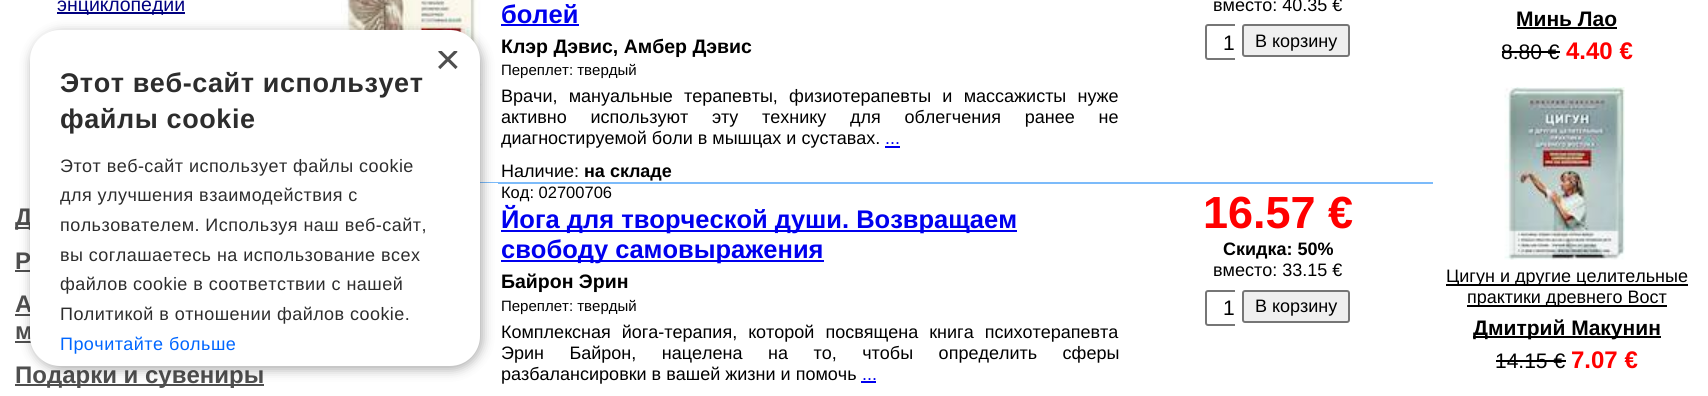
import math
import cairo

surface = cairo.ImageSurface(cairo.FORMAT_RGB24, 1708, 396)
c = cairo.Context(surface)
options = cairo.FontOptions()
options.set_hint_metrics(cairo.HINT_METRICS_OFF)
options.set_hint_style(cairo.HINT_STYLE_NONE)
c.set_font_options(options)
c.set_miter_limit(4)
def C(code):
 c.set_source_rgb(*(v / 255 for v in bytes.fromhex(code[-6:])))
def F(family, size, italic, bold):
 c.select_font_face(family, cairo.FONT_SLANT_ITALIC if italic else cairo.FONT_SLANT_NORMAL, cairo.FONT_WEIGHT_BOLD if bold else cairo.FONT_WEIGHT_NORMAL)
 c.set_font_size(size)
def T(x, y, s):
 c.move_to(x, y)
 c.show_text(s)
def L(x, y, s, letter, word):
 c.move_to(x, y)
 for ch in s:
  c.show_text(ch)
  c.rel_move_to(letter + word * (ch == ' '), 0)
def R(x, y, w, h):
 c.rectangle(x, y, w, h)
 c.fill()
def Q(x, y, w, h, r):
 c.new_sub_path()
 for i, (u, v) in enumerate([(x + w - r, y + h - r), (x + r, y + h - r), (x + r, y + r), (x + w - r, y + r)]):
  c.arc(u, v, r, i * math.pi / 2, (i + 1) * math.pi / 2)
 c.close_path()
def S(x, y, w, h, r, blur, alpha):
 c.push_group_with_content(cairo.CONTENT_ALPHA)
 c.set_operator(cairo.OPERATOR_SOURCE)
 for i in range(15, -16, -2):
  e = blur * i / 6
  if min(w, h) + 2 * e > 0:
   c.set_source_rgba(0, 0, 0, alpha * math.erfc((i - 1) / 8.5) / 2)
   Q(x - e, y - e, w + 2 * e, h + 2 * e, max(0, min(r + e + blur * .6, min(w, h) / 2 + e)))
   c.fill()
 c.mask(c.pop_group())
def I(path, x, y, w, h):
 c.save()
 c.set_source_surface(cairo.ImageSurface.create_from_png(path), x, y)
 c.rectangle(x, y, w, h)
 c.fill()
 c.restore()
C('ffffff')
c.paint()
C('000080')
R(57,12,128,2)
F('Liberation Sans',19.5,0,0)
T(57,11,'энциклопедии')
C('4f4f4f')
R(15,227,15,2)
F('Liberation Sans',24,0,1)
T(15,225,'Д')
T(15,269,'Р')
R(15,270,15,2)
T(15,312,'А')
R(15,314,15,2)
T(15,339,'м')
R(15,341,16,2)
R(15,384,249,2)
T(15,383,'Подарки и сувениры')
I('1.png',341,0,141,90)
F('Liberation Sans',25.5,0,1)
C('0000ee')
T(501,23,'болей')
R(501,24,78,2)
F('Liberation Sans',19.5,0,1)
C('000000')
T(501,53,'Клэр Дэвис, Амбер Дэвис')
F('Liberation Sans',15,0,0)
T(501,75,'Переплет: твердый')
F('Liberation Sans',18,0,0)
L(501,102,'Врачи, мануальные терапевты, физиотерапевты и массажисты нуже',0,6.25)
L(501,123,'активно используют эту технику для облегчения ранее не',0,18.75)
T(501,144,'диагностируемой боли в мышцах и суставах.')
C('0000ee')
T(885,144,'...')
R(885,146,15,2)
C('000000')
T(501,177,'Наличие:')
F('Liberation Sans',18,0,1)
T(584,177,'на складе')
F('Liberation Sans',18,0,0)
T(1213,11,'вместо: 40.35 €')
Q(1206,25,31,34,2)
C('767676')
c.stroke()
F('Liberation Sans',21,0,0)
C('000000')
T(1223,50,'1')
C('ffffff')
R(1235,24,3,42)
C('efefef')
Q(1243,25,106,31,2)
c.fill_preserve()
C('767676')
c.stroke()
F('Liberation Sans',18,0,0)
C('000000')
T(1255,47,'В корзину')
C('7cbbfa')
R(480,182,953,2)
I('2.png',472,183,26,173)
F('Liberation Sans',16.5,0,0)
C('000000')
T(501,198,'Код: 02700706')
C('0000ee')
R(501,230,516,2)
F('Liberation Sans',25.5,0,1)
T(501,228,'Йога для творческой души. Возвращаем')
R(501,260,323,2)
T(501,258,'свободу самовыражения')
F('Liberation Sans',19.5,0,1)
C('000000')
T(501,288,'Байрон Эрин')
F('Liberation Sans',15,0,0)
T(501,311,'Переплет: твердый')
F('Liberation Sans',18,0,0)
L(501,338,'Комплексная йога-терапия, которой посвящена книга психотерапевта',0,6)
L(501,359,'Эрин Байрон, нацелена на то, чтобы определить сферы',0,20.5)
T(501,380,'разбалансировки в вашей жизни и помочь')
C('0000ee')
T(862,380,'...')
R(861,381,15,2)
F('Liberation Sans',45,0,1)
C('ff0000')
T(1203,228,'16.57 €')
F('Liberation Sans',18,0,1)
C('000000')
T(1223,255,'Скидка: 50%')
F('Liberation Sans',18,0,0)
T(1213,276,'вместо: 33.15 €')
Q(1206,291,31,34,2)
C('767676')
c.stroke()
F('Liberation Sans',21,0,0)
C('000000')
T(1223,315,'1')
C('ffffff')
R(1235,290,3,42)
C('efefef')
Q(1243,291,106,31,2)
c.fill_preserve()
C('767676')
c.stroke()
F('Liberation Sans',18,0,0)
C('000000')
T(1255,312,'В корзину')
F('Liberation Sans',21,0,1)
T(1516,26,'Минь Лао')
R(1517,27,100,2)
F('Liberation Sans',21,0,0)
T(1501,59,'8.80 €')
R(1502,51,58,2)
F('Liberation Sans',24,0,1)
C('ff0000')
T(1566,59,'4.40 €')
I('3.png',1504,87,121,173)
C('000000')
R(1446,284,242,2)
F('Liberation Sans',18,0,0)
T(1446,282,'Цигун и другие целительные')
R(1467,305,200,2)
T(1467,303,'практики древнего Вост')
R(1473,336,188,2)
F('Liberation Sans',21,0,1)
T(1473,335,'Дмитрий Макунин')
F('Liberation Sans',21,0,0)
T(1495,368,'14.15 €')
R(1496,360,70,2)
F('Liberation Sans',24,0,1)
C('ff0000')
T(1571,368,'7.07 €')
C('000000')
S(32,33,450,336,30,6,.35)
C('ffffff')
Q(30,30,450,336,30)
c.fill()
c.save()
c.rectangle(435,51,23,23)
c.clip()
F('Liberation Sans',44,0,0)
C('4f4f4f')
T(435,74,'×')
c.restore()
F('Liberation Sans',27,0,1)
C('2d2d2d')
L(60,92,'Этот веб-сайт использует',.6,0)
L(60,128,'файлы cookie',.6,0)
F('Liberation Sans',18,0,0)
L(60,172,'Этот веб-сайт использует файлы cookie',.45,0)
L(60,201,'для улучшения взаимодействия с',.45,0)
L(60,231,'пользователем. Используя наш веб-сайт,',.45,0)
L(60,261,'вы соглашаетесь на использование всех',.45,0)
L(60,290,'файлов cookie в соответствии с нашей',.45,0)
L(60,320,'Политикой в отношении файлов cookie.',.45,0)
C('0066ff')
L(60,350,'Прочитайте больше',.45,0)
surface.write_to_png('o.png')
